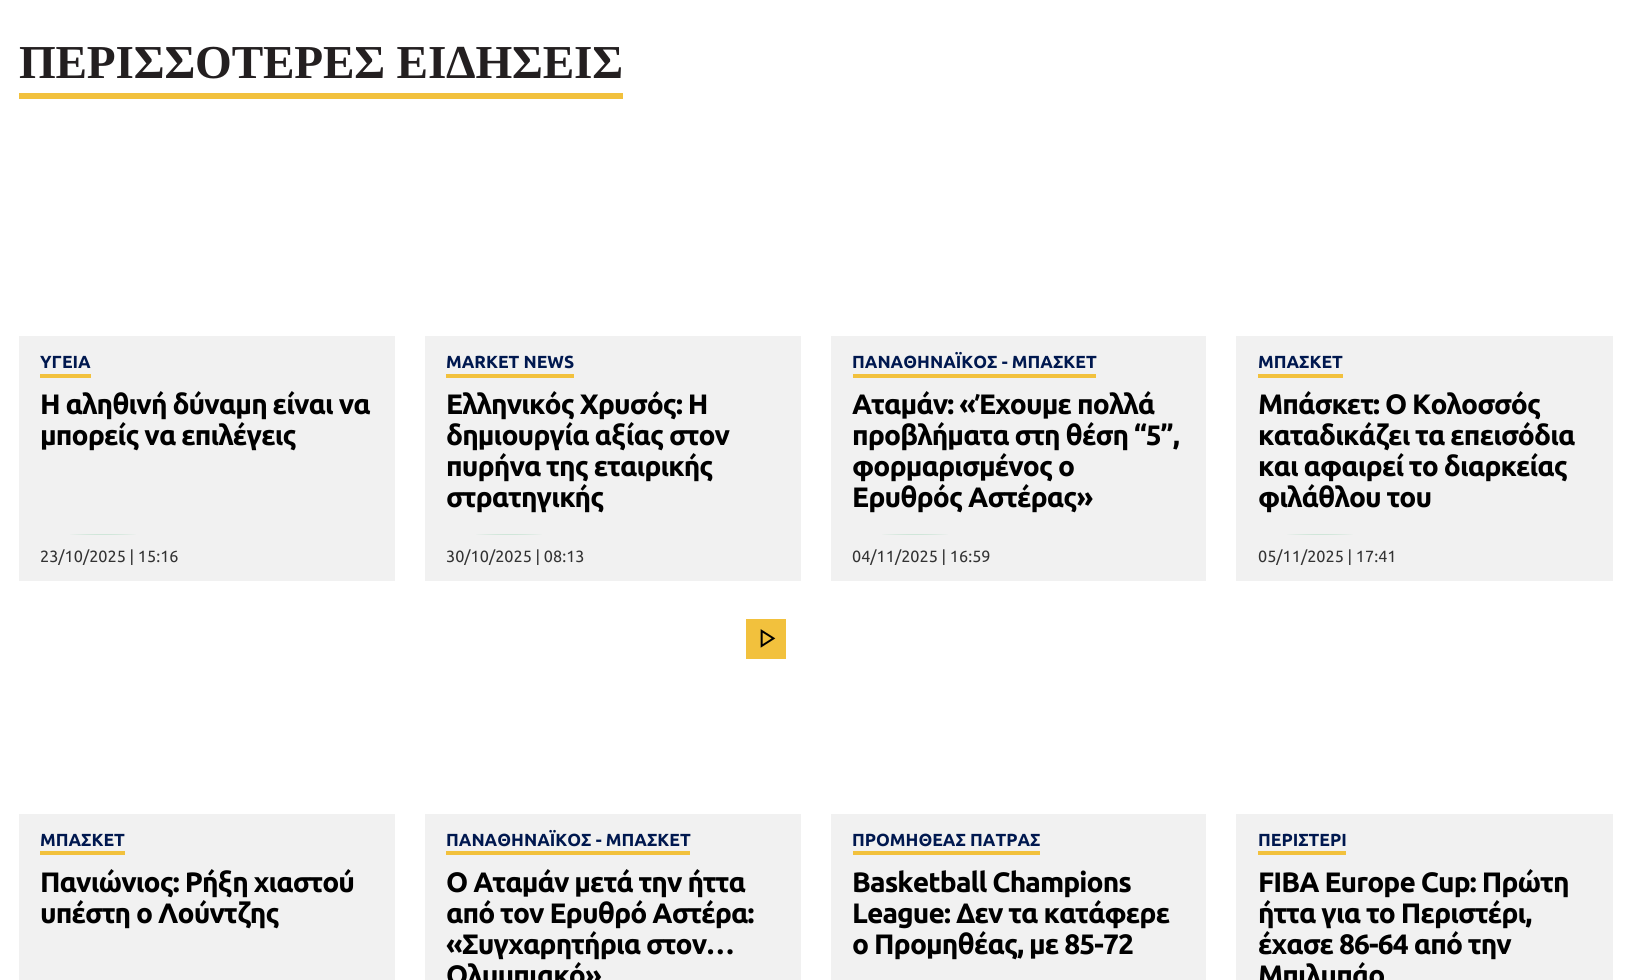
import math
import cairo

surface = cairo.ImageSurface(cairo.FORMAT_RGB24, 1631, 980)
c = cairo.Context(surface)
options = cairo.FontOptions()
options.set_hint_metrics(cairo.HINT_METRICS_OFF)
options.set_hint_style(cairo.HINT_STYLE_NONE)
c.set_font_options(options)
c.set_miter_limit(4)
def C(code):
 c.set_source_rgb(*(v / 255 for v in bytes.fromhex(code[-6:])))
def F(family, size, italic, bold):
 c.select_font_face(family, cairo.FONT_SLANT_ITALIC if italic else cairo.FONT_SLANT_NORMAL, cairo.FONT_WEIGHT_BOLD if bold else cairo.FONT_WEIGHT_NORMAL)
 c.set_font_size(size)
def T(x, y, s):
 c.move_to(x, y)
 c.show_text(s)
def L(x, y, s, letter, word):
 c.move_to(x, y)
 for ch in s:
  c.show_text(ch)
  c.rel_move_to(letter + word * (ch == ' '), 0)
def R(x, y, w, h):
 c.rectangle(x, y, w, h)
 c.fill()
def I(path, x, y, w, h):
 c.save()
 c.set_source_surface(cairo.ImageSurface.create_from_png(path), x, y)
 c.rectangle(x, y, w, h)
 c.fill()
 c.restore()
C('ffffff')
c.paint()
F('Liberation Serif',47.25,0,1)
C('231f20')
L(19,78,'ΠΕΡΙΣΣΟΤΕΡΕΣ ΕΙΔΗΣΕΙΣ',-.2,0)
C('f2c13d')
R(19,93,604,6)
C('f1f1f1')
R(19,336,376,245)
F('Ubuntu',17.5,0,1)
C('00184f')
T(40,368,'ΥΓΕΙΑ')
C('f2c13d')
R(40,374,51,4)
F('Ubuntu',28.1,0,1)
C('000000')
L(40,414,'Η αληθινή δύναμη είναι να',-.9,0)
L(40,445,'μπορείς να επιλέγεις',-.9,0)
gradient = cairo.RadialGradient(0,0,0,0,0,1)
gradient.set_matrix(cairo.Matrix(1 / 63, 0, 0, 1 / 0.6, -1 * 103 / 63, -1 * 534 / 0.6))
gradient.add_color_stop_rgba(0,0.153,0.682,0.376,1)
gradient.add_color_stop_rgba(1,0.945,0.945,0.945,1)
c.set_source(gradient)
R(70,534,66,1)
F('Ubuntu',16.25,0,0)
C('333333')
T(40,562,'23/10/2025 | 15:16')
C('f1f1f1')
R(425,336,376,245)
F('Ubuntu',17.5,0,1)
C('00184f')
T(446,368,'MARKET NEWS')
C('f2c13d')
R(446,374,128,4)
F('Ubuntu',28.1,0,1)
C('000000')
L(446,414,'Ελληνικός Χρυσός: Η',-.9,0)
L(446,445,'δημιουργία αξίας στον',-.9,0)
L(446,476,'πυρήνα της εταιρικής',-.9,0)
L(446,507,'στρατηγικής',-.9,0)
gradient = cairo.RadialGradient(0,0,0,0,0,1)
gradient.set_matrix(cairo.Matrix(1 / 63, 0, 0, 1 / 0.6, -1 * 509 / 63, -1 * 534 / 0.6))
gradient.add_color_stop_rgba(0,0.153,0.682,0.376,1)
gradient.add_color_stop_rgba(1,0.945,0.945,0.945,1)
c.set_source(gradient)
R(476,534,66,1)
F('Ubuntu',16.25,0,0)
C('333333')
T(446,562,'30/10/2025 | 08:13')
C('f1f1f1')
R(831,336,375,245)
F('Ubuntu',17.5,0,1)
C('00184f')
T(852,368,'ΠΑΝΑΘΗΝΑΪΚΟΣ - ΜΠΑΣΚΕΤ')
C('f2c13d')
R(853,374,243,4)
F('Ubuntu',28.1,0,1)
C('000000')
L(852,414,'Αταμάν: «Έχουμε πολλά',-.9,0)
L(852,445,'προβλήματα στη θέση “5”,',-.9,0)
L(852,476,'φορμαρισμένος ο',-.9,0)
L(852,507,'Ερυθρός Αστέρας»',-.9,0)
gradient = cairo.RadialGradient(0,0,0,0,0,1)
gradient.set_matrix(cairo.Matrix(1 / 63, 0, 0, 1 / 0.6, -1 * 915 / 63, -1 * 534 / 0.6))
gradient.add_color_stop_rgba(0,0.153,0.682,0.376,1)
gradient.add_color_stop_rgba(1,0.945,0.945,0.945,1)
c.set_source(gradient)
R(882,534,66,1)
F('Ubuntu',16.25,0,0)
C('333333')
T(852,562,'04/11/2025 | 16:59')
C('f1f1f1')
R(1236,336,377,245)
F('Ubuntu',17.5,0,1)
C('00184f')
T(1258,368,'ΜΠΑΣΚΕΤ')
C('f2c13d')
R(1258,374,85,4)
F('Ubuntu',28.1,0,1)
C('000000')
L(1258,414,'Μπάσκετ: Ο Κολοσσός',-.9,0)
L(1258,445,'καταδικάζει τα επεισόδια',-.9,0)
L(1258,476,'και αφαιρεί το διαρκείας',-.9,0)
L(1258,507,'φιλάθλου του',-.9,0)
gradient = cairo.RadialGradient(0,0,0,0,0,1)
gradient.set_matrix(cairo.Matrix(1 / 63, 0, 0, 1 / 0.6, -1 * 1320 / 63, -1 * 534 / 0.6))
gradient.add_color_stop_rgba(0,0.153,0.682,0.376,1)
gradient.add_color_stop_rgba(1,0.945,0.945,0.945,1)
c.set_source(gradient)
R(1287,534,66,1)
F('Ubuntu',16.25,0,0)
C('333333')
T(1258,562,'05/11/2025 | 17:41')
C('f1f1f1')
R(19,814,376,166)
F('Ubuntu',17.5,0,1)
C('00184f')
T(40,846,'ΜΠΑΣΚΕΤ')
C('f2c13d')
R(40,851,85,4)
F('Ubuntu',28.1,0,1)
C('000000')
L(40,892,'Πανιώνιος: Ρήξη χιαστού',-.9,0)
L(40,923,'υπέστη ο Λούντζης',-.9,0)
C('f2c13d')
R(746,619,40,40)
I('1.png',760,629,16,19)
C('f1f1f1')
R(425,814,376,166)
F('Ubuntu',17.5,0,1)
C('00184f')
T(446,846,'ΠΑΝΑΘΗΝΑΪΚΟΣ - ΜΠΑΣΚΕΤ')
C('f2c13d')
R(446,851,244,4)
F('Ubuntu',28.1,0,1)
C('000000')
L(446,892,'Ο Αταμάν μετά την ήττα',-.9,0)
L(446,923,'από τον Ερυθρό Αστέρα:',-.9,0)
L(446,954,'«Συγχαρητήρια στον…',-.9,0)
L(446,985,'Ολυμπιακό»',-.9,0)
C('f1f1f1')
R(831,814,375,166)
F('Ubuntu',17.5,0,1)
C('00184f')
T(852,846,'ΠΡΟΜΗΘΕΑΣ ΠΑΤΡΑΣ')
C('f2c13d')
R(853,851,187,4)
F('Ubuntu',28.1,0,1)
C('000000')
L(852,892,'Basketball Champions',-.9,0)
L(852,923,'League: Δεν τα κατάφερε',-.9,0)
L(852,954,'ο Προμηθέας, με 85-72',-.9,0)
C('f1f1f1')
R(1236,814,377,166)
F('Ubuntu',17.5,0,1)
C('00184f')
T(1258,846,'ΠΕΡΙΣΤΕΡΙ')
C('f2c13d')
R(1258,851,88,4)
F('Ubuntu',28.1,0,1)
C('000000')
L(1258,892,'FIBA Europe Cup: Πρώτη',-.9,0)
L(1258,923,'ήττα για το Περιστέρι,',-.9,0)
L(1258,954,'έχασε 86-64 από την',-.9,0)
L(1258,985,'Μπιλμπάο',-.9,0)
surface.write_to_png('o.png')
